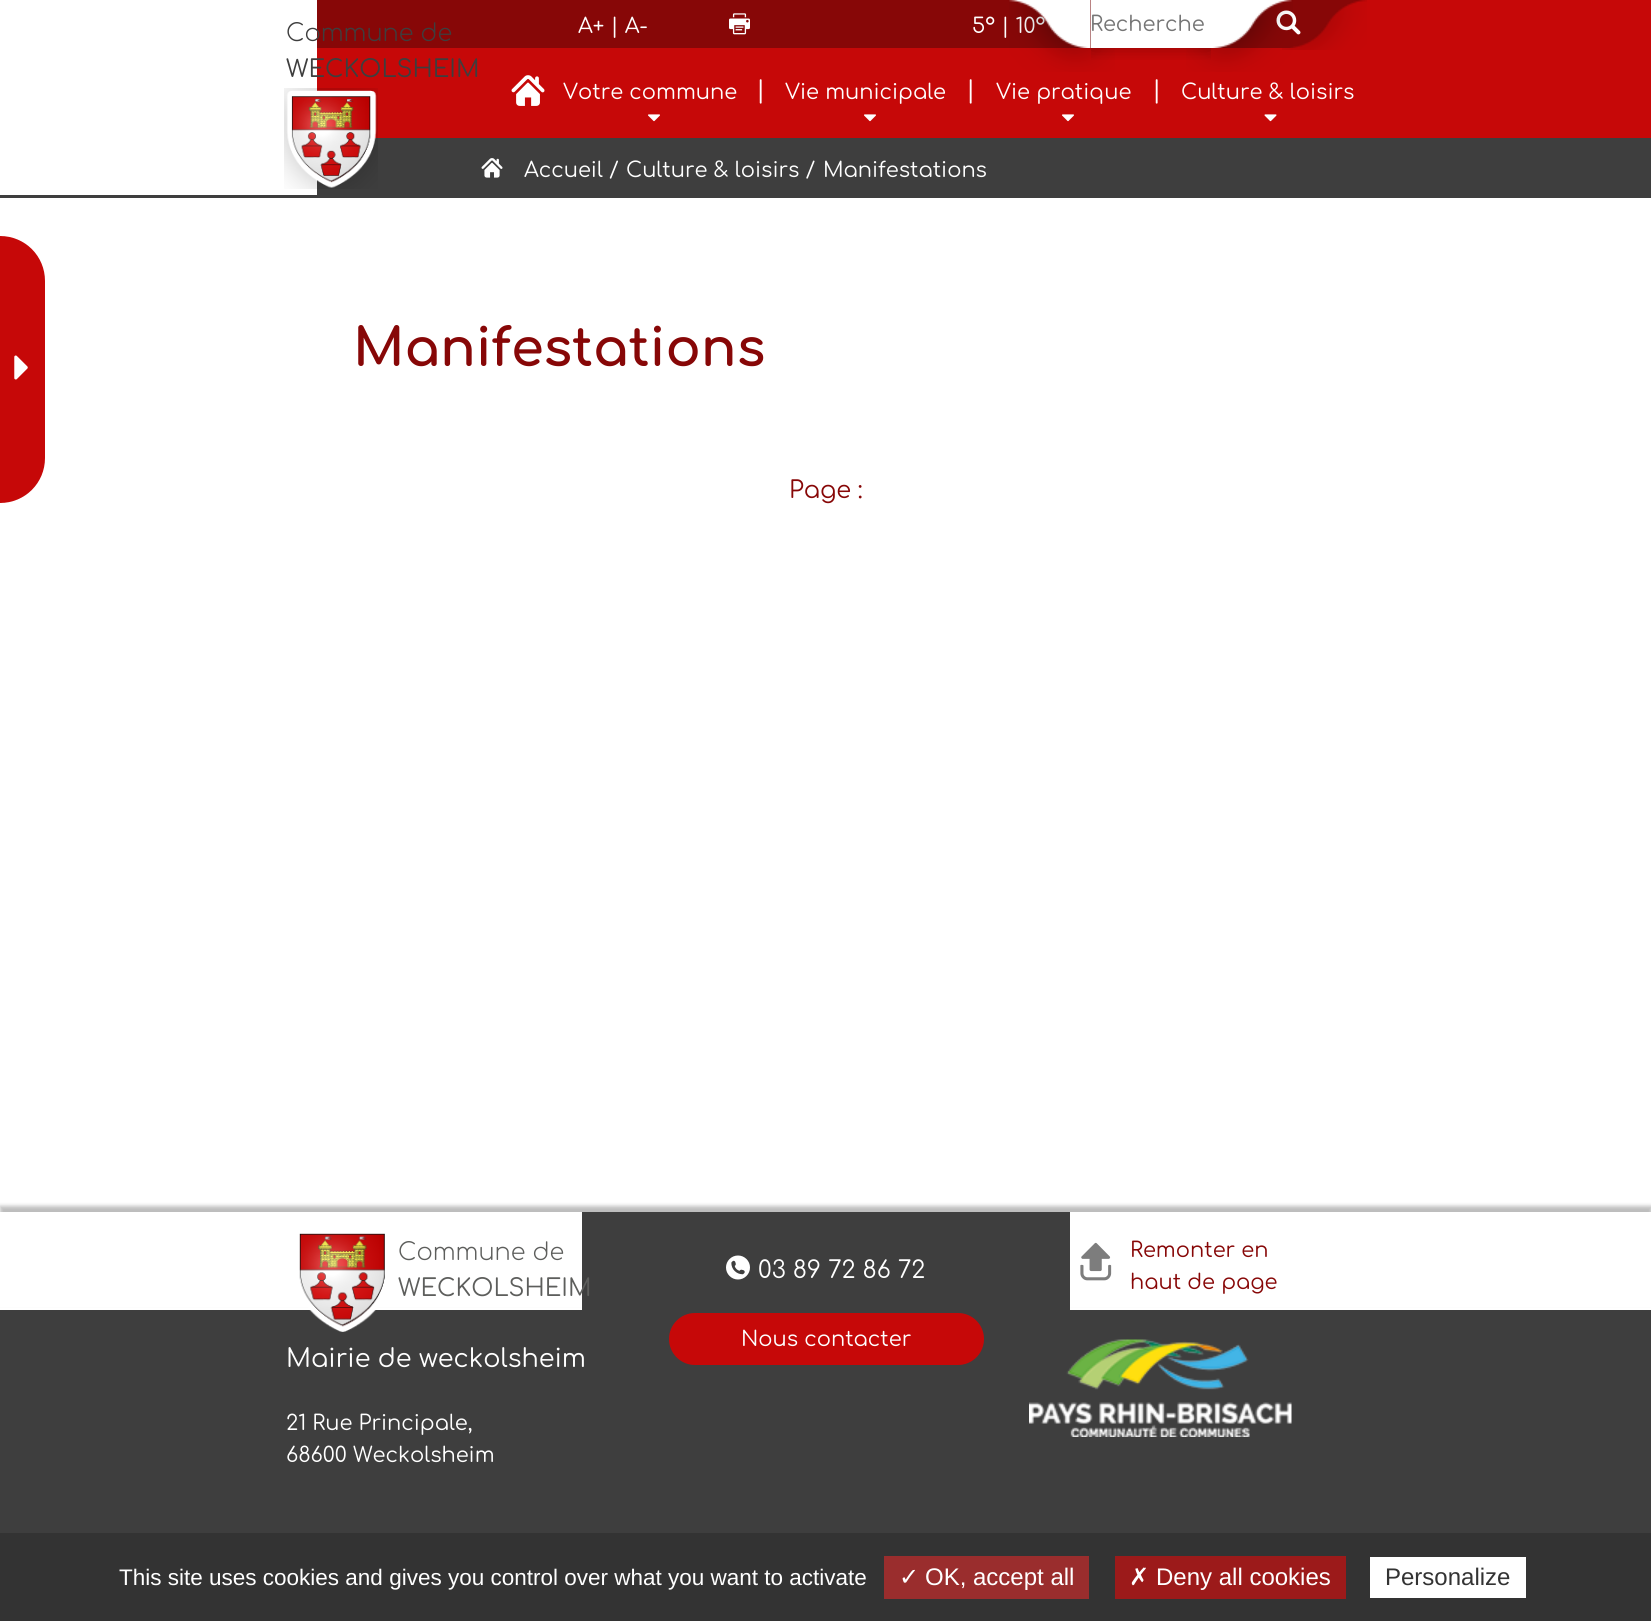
import math
import cairo

surface = cairo.ImageSurface(cairo.FORMAT_RGB24, 1651, 1621)
c = cairo.Context(surface)
options = cairo.FontOptions()
options.set_hint_metrics(cairo.HINT_METRICS_OFF)
options.set_hint_style(cairo.HINT_STYLE_NONE)
c.set_font_options(options)
c.set_miter_limit(4)
def C(code):
 c.set_source_rgb(*(v / 255 for v in bytes.fromhex(code[-6:])))
def F(family, size, italic, bold):
 c.select_font_face(family, cairo.FONT_SLANT_ITALIC if italic else cairo.FONT_SLANT_NORMAL, cairo.FONT_WEIGHT_BOLD if bold else cairo.FONT_WEIGHT_NORMAL)
 c.set_font_size(size)
def T(x, y, s):
 c.move_to(x, y)
 c.show_text(s)
def R(x, y, w, h):
 c.rectangle(x, y, w, h)
 c.fill()
def Q(x, y, w, h, r):
 c.new_sub_path()
 for i, (u, v) in enumerate([(x + w - r, y + h - r), (x + r, y + h - r), (x + r, y + r), (x + w - r, y + r)]):
  c.arc(u, v, r, i * math.pi / 2, (i + 1) * math.pi / 2)
 c.close_path()
def S(x, y, w, h, r, blur, alpha):
 c.push_group_with_content(cairo.CONTENT_ALPHA)
 c.set_operator(cairo.OPERATOR_SOURCE)
 for i in range(15, -16, -2):
  e = blur * i / 6
  if min(w, h) + 2 * e > 0:
   c.set_source_rgba(0, 0, 0, alpha * math.erfc((i - 1) / 8.5) / 2)
   Q(x - e, y - e, w + 2 * e, h + 2 * e, max(0, min(r + e + blur * .6, min(w, h) / 2 + e)))
   c.fill()
 c.mask(c.pop_group())
def I(path, x, y, w, h):
 c.save()
 c.set_source_surface(cairo.ImageSurface.create_from_png(path), x, y)
 c.rectangle(x, y, w, h)
 c.fill()
 c.restore()
C('ffffff')
c.paint()
C('c60808')
R(317,0,1334,138)
C('870707')
R(317,0,774,48)
F('Comfortaa',21,0,0)
C('ffffff')
T(972,33,'5° | 10°')
I('1.png',1009,0,106,72)
I('4.png',1282,0,85,50)
C('870707')
c.new_path()
c.move_to(1211,0)
c.line_to(1301,0)
c.line_to(1301,33)
c.curve_to(1301,41.5,1294.5,48,1286,48)
c.line_to(1211,48)
c.close_path()
c.fill()
I('3.png',1276,10,25,25)
I('2.png',1186,0,107,72)
c.save()
c.rectangle(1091,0,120,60)
c.clip()
C('000000')
S(1091,0,120,48,0,9,.26)
c.restore()
C('ffffff')
R(1091,0,120,48)
C('757575')
T(1090,31,'Recherche')
I('5.png',511,75,34,31)
C('ffffff')
T(563,99,'Votre commune')
I('6.png',648,114,12,8)
F('Comfortaa',24,0,0)
T(756,98,'|')
F('Comfortaa',21,0,0)
T(785,99,'Vie municipale')
I('6.png',864,114,12,8)
F('Comfortaa',24,0,0)
T(966,98,'|')
F('Comfortaa',21,0,0)
T(996,99,'Vie pratique')
I('6.png',1062,114,12,8)
F('Comfortaa',24,0,0)
T(1152,98,'|')
F('Comfortaa',21,0,0)
T(1181,99,'Culture & loisirs')
I('7.png',1264,114,13,8)
F('Comfortaa Light',24,0,0)
C('3e3e3e')
T(286,41,'Commune de')
F('Comfortaa',24,0,0)
T(286,77,'WECKOLSHEIM')
R(0,138,1651,60)
C('ffffff')
R(0,138,317,57)
I('8.png',284,88,94,101)
F('Comfortaa',21,0,0)
T(578,33,'A+ | A-')
I('9.png',729,13,21,22)
I('10.png',481,158,22,20)
T(524,177,'Accueil /')
T(626,177,'Culture & loisirs /')
T(823,177,'Manifestations')
C('c60808')
c.new_path()
c.move_to(-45,236)
c.line_to(0,236)
c.curve_to(25,236,45,256,45,281)
c.line_to(45,458)
c.curve_to(45,483,25,503,0,503)
c.line_to(-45,503)
c.close_path()
c.fill()
I('11.png',14,355,14,25)
F('Comfortaa',52.5,0,1)
C('870707')
T(353,366,'Manifestations')
F('Comfortaa',24,0,0)
T(789,498,'Page :')
C('3e3e3e')
R(0,1310,1651,223)
C('000000')
S(0,1206,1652,98,0,2,.26)
C('ffffff')
R(0,1212,1651,95)
I('12.png',299,1233,86,99)
F('Comfortaa Light',24,0,0)
C('5d5e5c')
T(398,1260,'Commune de')
C('3e3e3e')
R(582,1212,488,98)
F('Comfortaa',24,0,0)
C('5d5e5c')
T(398,1296,'WECKOLSHEIM')
I('13.png',1080,1242,32,39)
F('Comfortaa',21,0,0)
C('870707')
T(1130,1257,'Remonter en')
T(1130,1289,'haut de page')
I('14.png',726,1255,24,25)
F('Comfortaa',24,0,0)
C('ffffff')
T(758,1278,'03 89 72 86 72')
C('c60808')
Q(669,1313,315,52,26)
c.fill()
F('Comfortaa',21,0,0)
C('ffffff')
T(741,1346,'Nous contacter')
F('Comfortaa',25.5,0,0)
T(286,1367,'Mairie de weckolsheim')
F('Comfortaa',21,0,0)
T(286,1430,'21 Rue Principale,')
T(286,1462,'68600 Weckolsheim')
I('15.png',1029,1339,263,98)
C('333333')
R(0,1533,1651,88)
F('Liberation Sans',22.5,0,0)
C('ffffff')
T(119,1585,'This site uses cookies and gives you control over what you want to activate')
C('9a2d2d')
R(884,1556,205,43)
F('DejaVu Sans',24,0,0)
C('ffffff')
T(899,1585,'✓')
F('Liberation Sans',24,0,0)
T(925,1585,'OK, accept all')
C('9c1a1a')
R(1115,1556,231,43)
F('DejaVu Sans',24,0,0)
C('ffffff')
T(1129,1585,'✗')
F('Liberation Sans',24,0,0)
T(1156,1585,'Deny all cookies')
R(1370,1557,156,41)
C('333333')
T(1385,1585,'Personalize')
surface.write_to_png('o.png')
